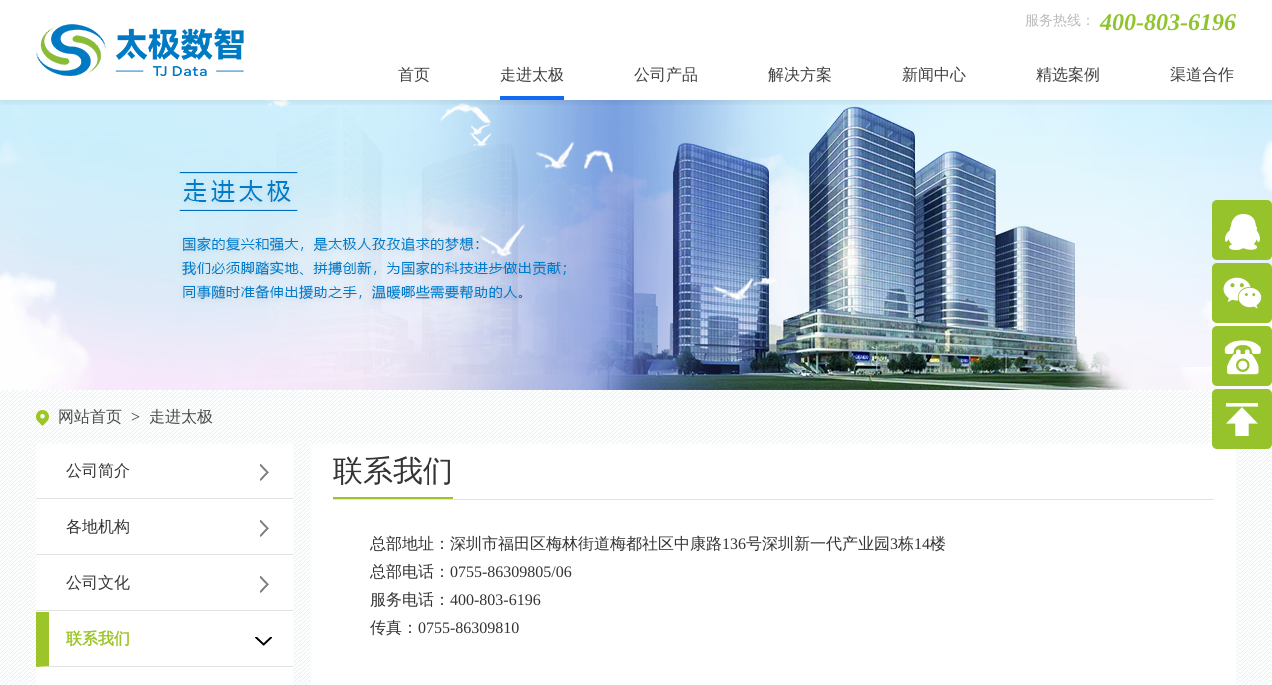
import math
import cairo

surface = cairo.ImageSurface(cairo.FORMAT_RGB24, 1272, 685)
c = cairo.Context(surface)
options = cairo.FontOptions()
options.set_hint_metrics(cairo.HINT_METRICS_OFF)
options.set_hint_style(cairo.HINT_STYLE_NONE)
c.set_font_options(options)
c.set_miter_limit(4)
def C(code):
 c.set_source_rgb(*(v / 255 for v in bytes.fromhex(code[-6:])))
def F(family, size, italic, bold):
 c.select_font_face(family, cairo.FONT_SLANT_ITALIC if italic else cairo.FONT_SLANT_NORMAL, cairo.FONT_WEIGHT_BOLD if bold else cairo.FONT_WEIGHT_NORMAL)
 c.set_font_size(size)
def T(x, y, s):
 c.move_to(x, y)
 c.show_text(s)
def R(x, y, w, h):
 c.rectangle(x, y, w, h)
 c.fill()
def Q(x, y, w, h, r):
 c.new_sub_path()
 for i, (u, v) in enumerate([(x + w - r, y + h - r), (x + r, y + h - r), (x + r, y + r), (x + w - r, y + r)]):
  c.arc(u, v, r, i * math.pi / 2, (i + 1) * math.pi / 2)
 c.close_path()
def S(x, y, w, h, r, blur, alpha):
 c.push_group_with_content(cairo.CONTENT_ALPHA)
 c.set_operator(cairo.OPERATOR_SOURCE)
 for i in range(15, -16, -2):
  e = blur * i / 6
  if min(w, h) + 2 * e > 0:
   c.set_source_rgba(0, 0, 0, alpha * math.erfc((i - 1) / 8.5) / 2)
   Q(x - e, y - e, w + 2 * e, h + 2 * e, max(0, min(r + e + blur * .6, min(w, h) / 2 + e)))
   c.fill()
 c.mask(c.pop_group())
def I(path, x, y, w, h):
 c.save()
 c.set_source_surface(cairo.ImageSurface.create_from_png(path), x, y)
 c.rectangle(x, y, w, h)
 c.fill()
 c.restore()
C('ffffff')
c.paint()
I('1.png',0,390,1272,295)
I('3.png',0,100,1272,290)
c.save()
c.rectangle(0,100,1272,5)
c.clip()
C('000000')
S(1,1,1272,100,0,5,.1)
c.restore()
F('WenQuanYi Zen Hei Medium',14,0,0)
C('bababa')
T(1025,25,'服务热线：')
F('Liberation Serif',24,1,1)
C('90c42f')
T(1100,30,'400-803-6196')
I('2.png',36,24,208,52)
F('WenQuanYi Zen Hei Medium',16,0,0)
C('3f3f3f')
T(398,80,'首页')
T(500,80,'走进太极')
T(634,80,'公司产品')
T(768,80,'解决方案')
T(902,80,'新闻中心')
T(1036,80,'精选案例')
T(1170,80,'渠道合作')
C('1369f0')
R(500,96,64,4)
C('96c22b')
Q(1212,200,60,60,5)
c.fill()
I('4.png',1225,214,35,36)
Q(1212,263,60,60,5)
c.fill()
I('5.png',1223,277,39,32)
Q(1212,326,60,60,5)
c.fill()
I('6.png',1224,340,37,35)
C('ffffff')
R(311,444,925,241)
C('96c22b')
Q(1212,389,60,60,5)
c.fill()
I('7.png',1226,403,32,33)
I('8.png',36,410,13,16)
C('4b4b4b')
T(58,422,'网站首页')
F('Liberation Serif',16,0,0)
C('333333')
T(131,422,'>')
F('WenQuanYi Zen Hei Medium',16,0,0)
C('4b4b4b')
T(149,422,'走进太极')
C('ffffff')
R(36,444,257,241)
C('e3e3e3')
R(36,498,257,1)
C('333333')
T(66,476,'公司简介')
I('9.png',260,464,9,17)
C('e3e3e3')
R(36,554,257,1)
C('333333')
T(66,532,'各地机构')
I('9.png',260,520,9,17)
C('e3e3e3')
R(36,610,257,1)
C('333333')
T(66,588,'公司文化')
I('9.png',260,576,9,17)
C('e3e3e3')
c.new_path()
c.move_to(293,667)
c.line_to(36,667)
c.line_to(49,666)
c.line_to(293,666)
c.close_path()
c.fill()
C('9cc529')
c.new_path()
c.move_to(36,667)
c.line_to(36,612)
c.line_to(49,612)
c.line_to(49,666)
c.close_path()
c.fill()
F('WenQuanYi Zen Hei',16,0,1)
T(66,644,'联系我们')
I('10.png',255,637,17,9)
C('e3e3e3')
R(333,499,881,1)
C('9cc529')
R(333,497,120,2)
F('WenQuanYi Zen Hei Medium',30,0,0)
C('333333')
T(333,481,'联系我们')
F('WenQuanYi Zen Hei Medium',16,0,0)
T(370,549,'总部地址：深圳市福田区梅林街道梅都社区中康路')
F('Liberation Serif',16,0,0)
T(722,549,'136')
F('WenQuanYi Zen Hei Medium',16,0,0)
T(746,549,'号深圳新一代产业园')
F('Liberation Serif',16,0,0)
T(890,549,'3')
F('WenQuanYi Zen Hei Medium',16,0,0)
T(898,549,'栋')
F('Liberation Serif',16,0,0)
T(914,549,'14')
F('WenQuanYi Zen Hei Medium',16,0,0)
T(930,549,'楼')
T(370,577,'总部电话：')
F('Liberation Serif',16,0,0)
T(450,577,'0755-86309805/06')
F('WenQuanYi Zen Hei Medium',16,0,0)
T(370,605,'服务电话：')
F('Liberation Serif',16,0,0)
T(450,605,'400-803-6196')
F('WenQuanYi Zen Hei Medium',16,0,0)
T(370,633,'传真：')
F('Liberation Serif',16,0,0)
T(418,633,'0755-86309810')
surface.write_to_png('o.png')
